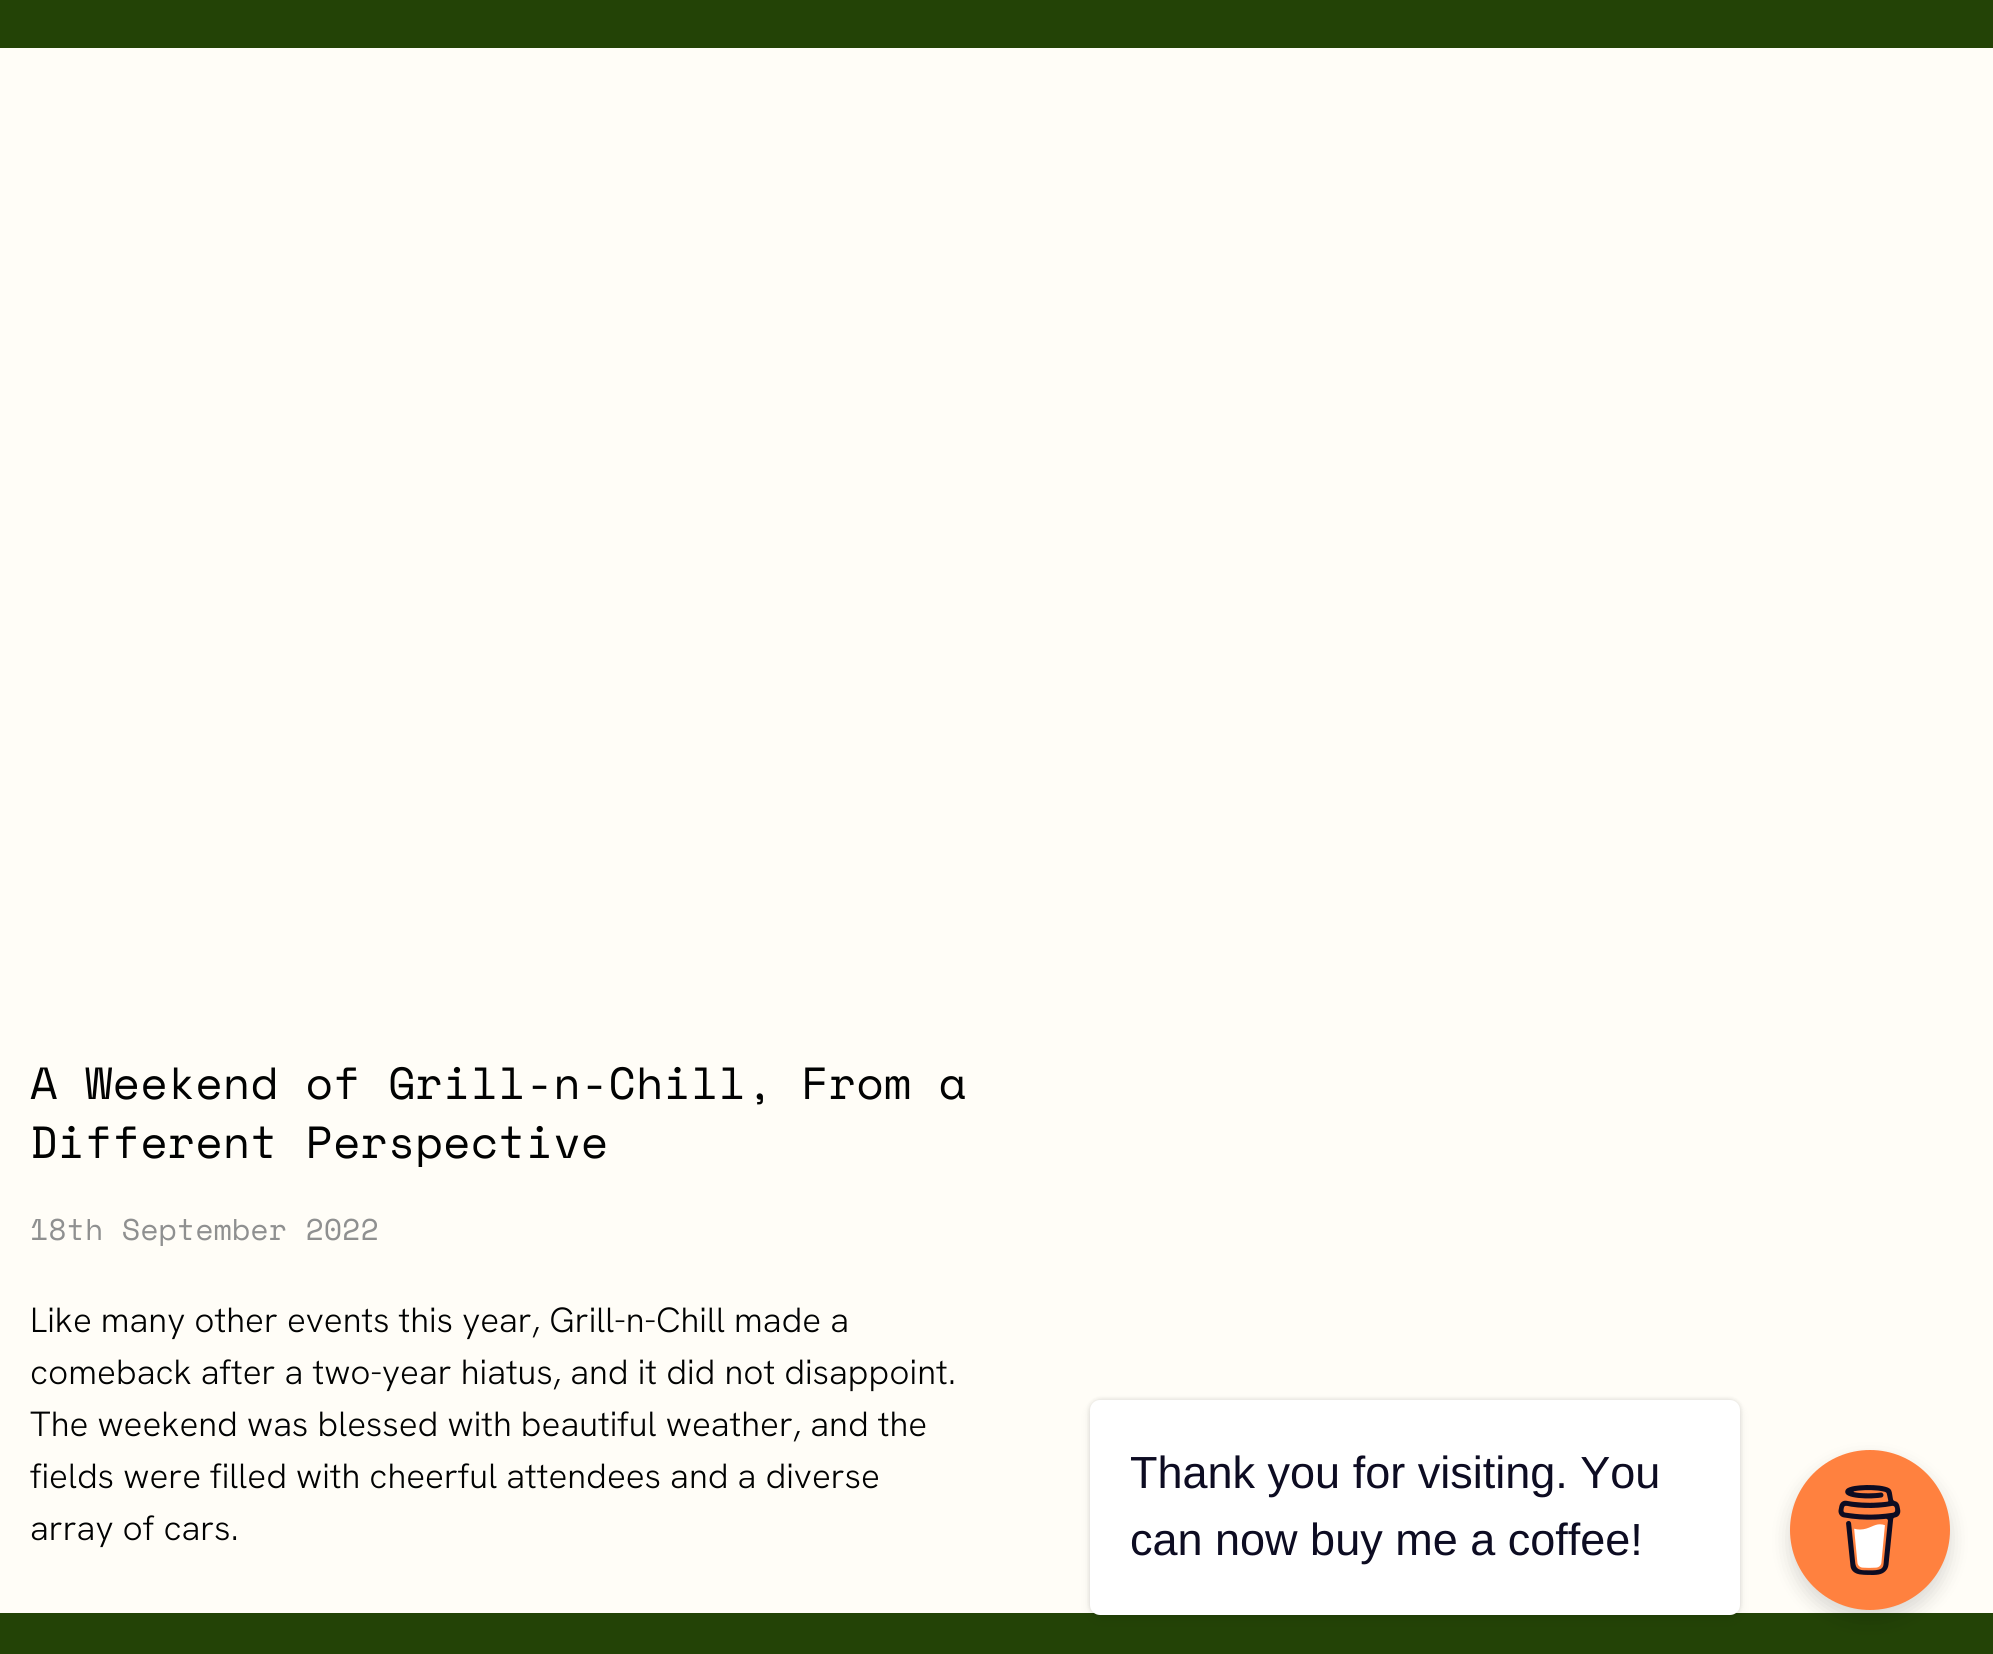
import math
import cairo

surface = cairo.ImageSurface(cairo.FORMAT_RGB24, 1993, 1654)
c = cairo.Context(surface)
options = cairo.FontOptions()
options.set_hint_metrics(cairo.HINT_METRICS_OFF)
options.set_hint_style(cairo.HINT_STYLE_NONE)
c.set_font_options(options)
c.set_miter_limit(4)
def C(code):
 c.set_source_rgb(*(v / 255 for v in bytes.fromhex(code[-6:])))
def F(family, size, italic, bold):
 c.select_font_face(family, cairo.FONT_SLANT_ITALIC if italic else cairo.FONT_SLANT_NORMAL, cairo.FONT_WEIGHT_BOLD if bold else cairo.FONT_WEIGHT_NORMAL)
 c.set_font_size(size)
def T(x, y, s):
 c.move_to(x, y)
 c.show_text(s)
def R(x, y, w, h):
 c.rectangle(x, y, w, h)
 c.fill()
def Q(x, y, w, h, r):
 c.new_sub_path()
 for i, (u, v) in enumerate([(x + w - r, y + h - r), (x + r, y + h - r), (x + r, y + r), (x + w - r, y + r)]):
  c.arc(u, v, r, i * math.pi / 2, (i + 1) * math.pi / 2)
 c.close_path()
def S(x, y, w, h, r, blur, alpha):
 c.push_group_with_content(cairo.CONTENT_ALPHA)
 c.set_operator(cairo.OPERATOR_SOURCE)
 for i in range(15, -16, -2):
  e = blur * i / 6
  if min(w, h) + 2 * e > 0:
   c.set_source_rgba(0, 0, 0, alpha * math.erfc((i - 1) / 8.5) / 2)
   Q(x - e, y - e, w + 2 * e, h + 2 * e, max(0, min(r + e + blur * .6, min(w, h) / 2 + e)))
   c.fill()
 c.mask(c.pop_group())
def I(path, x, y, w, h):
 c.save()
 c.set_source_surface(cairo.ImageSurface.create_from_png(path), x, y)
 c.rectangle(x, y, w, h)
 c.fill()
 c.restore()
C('fffdf7')
c.paint()
C('234306')
R(0,0,1993,48)
F('Space Mono',45,0,0)
C('010202')
T(30,1099,'A Weekend of Grill-n-Chill, From a')
T(30,1158,'Different Perspective')
F('Space Mono',30,0,0)
C('8f9090')
T(30,1240,'18th September 2022')
F('Hanken Grotesk Light',35,0,0)
C('010202')
T(30,1332,'Like many other events this year, Grill-n-Chill made a')
T(30,1384,'comeback after a two-year hiatus, and it did not disappoint.')
T(30,1436,'The weekend was blessed with beautiful weather, and the')
T(30,1488,'fields were filled with cheerful attendees and a diverse')
T(30,1540,'array of cars.')
C('234306')
R(0,1613,1993,41)
C('000000')
S(1090,1400,650,215,10,2.5,.15)
S(1090,1405,650,215,10,6,.05)
C('ffffff')
Q(1090,1400,650,215,10)
c.fill()
F('Liberation Sans',45,0,0)
C('0d0c22')
T(1130,1488,'Thank you for visiting. You')
T(1130,1555,'can now buy me a coffee!')
C('000000')
S(1790,1460,160,160,80,10,.15)
C('ff813f')
c.arc(1870,1530,80,0,2 * math.pi)
c.fill()
I('1.png',1838,1485,63,90)
surface.write_to_png('o.png')
